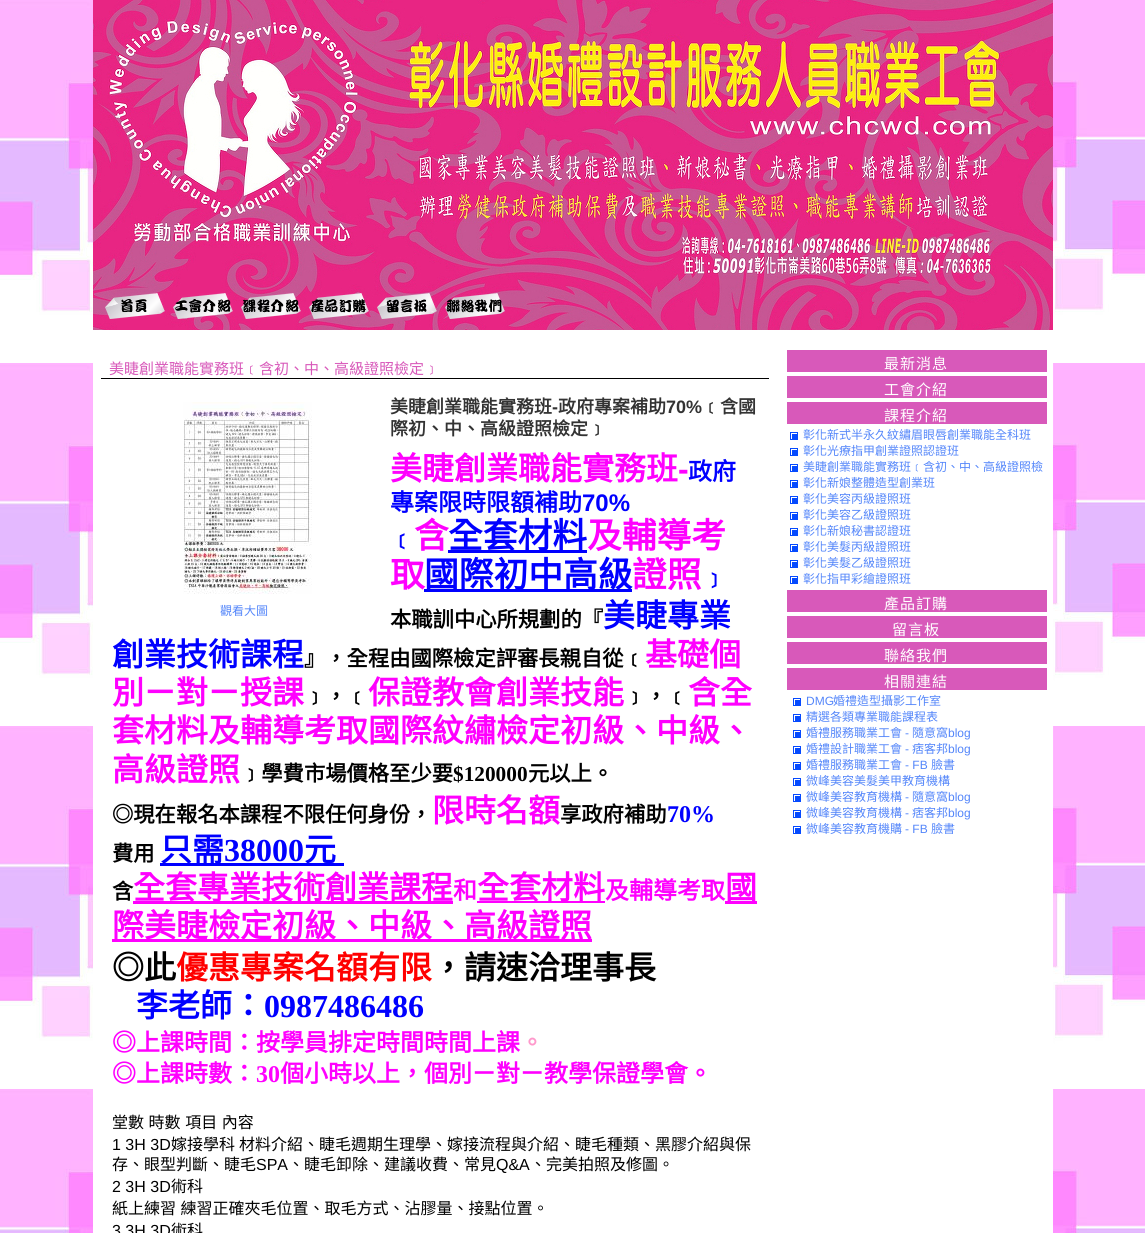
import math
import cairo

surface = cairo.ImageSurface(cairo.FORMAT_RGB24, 1145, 1233)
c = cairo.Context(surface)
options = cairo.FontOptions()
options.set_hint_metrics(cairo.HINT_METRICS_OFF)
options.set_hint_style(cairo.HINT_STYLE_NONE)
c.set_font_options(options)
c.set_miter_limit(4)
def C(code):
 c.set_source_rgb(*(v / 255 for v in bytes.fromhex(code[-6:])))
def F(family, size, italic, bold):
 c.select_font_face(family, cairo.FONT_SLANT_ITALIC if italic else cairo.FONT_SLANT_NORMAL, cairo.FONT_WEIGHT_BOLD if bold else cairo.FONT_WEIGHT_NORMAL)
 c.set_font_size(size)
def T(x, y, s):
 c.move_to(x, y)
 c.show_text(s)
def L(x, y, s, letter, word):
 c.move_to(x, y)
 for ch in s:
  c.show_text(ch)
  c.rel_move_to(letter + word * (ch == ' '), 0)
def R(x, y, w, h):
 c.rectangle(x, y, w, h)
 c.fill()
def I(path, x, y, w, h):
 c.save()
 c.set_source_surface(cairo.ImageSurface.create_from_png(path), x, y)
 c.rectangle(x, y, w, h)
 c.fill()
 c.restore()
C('ffffff')
c.paint()
I('1.png',0,0,1145,1233)
C('ffffff')
R(93,330,960,903)
I('2.png',93,0,960,330)
I('3.png',105,293,60,26)
I('4.png',173,293,60,26)
I('5.png',241,293,60,26)
I('6.png',309,293,60,26)
I('7.png',377,293,60,26)
I('8.png',445,293,60,26)
C('000000')
R(101,378,668,1)
F('Noto Sans CJK TC',15,0,0)
C('d859ba')
T(109,374,'美睫創業職能實務班﹝含初、中、高級證照檢定﹞')
F('Noto Sans CJK TC',18,0,1)
C('333333')
T(390,413,'美睫創業職能實務班')
F('Liberation Sans',18,0,1)
T(552,413,'-')
F('Noto Sans CJK TC',18,0,1)
T(558,413,'政府專案補助')
F('Liberation Sans',18,0,1)
T(666,413,'70%')
F('Noto Sans CJK TC',18,0,1)
T(702,413,'﹝含國')
T(390,435,'際初、中、高級證照檢定﹞')
F('Noto Sans CJK TC',32,0,1)
C('ff00ff')
T(390,480,'美睫創業職能實務班')
F('Liberation Sans',32,0,1)
T(678,480,'-')
F('Noto Sans CJK TC',24,0,1)
C('0000ff')
T(688,480,'政府')
T(390,511,'專案限時限額補助')
F('Liberation Sans',24,0,1)
T(582,511,'70%')
F('Noto Sans CJK TC',24,0,1)
T(390,548,'﹝')
F('Noto Sans CJK TC',34.75,0,1)
C('ff00ff')
T(414,548,'含')
C('0000ff')
R(448,550,139,3)
T(448,548,'全套材料')
C('ff00ff')
T(587,548,'及輔導考')
T(390,587,'取')
C('0000ff')
R(424,589,208,3)
T(424,587,'國際初中高級')
C('ff00ff')
T(632,587,'證照')
F('Noto Sans CJK TC',24,0,1)
C('0000ff')
T(702,587,'﹞')
F('Noto Sans CJK TC',21.3,0,1)
C('000000')
T(390,627,'本職訓中心所規劃的『')
F('Noto Sans CJK TC',32,0,1)
C('0000ff')
T(603,627,'美睫專業')
T(112,666,'創業技術課程')
F('Noto Sans CJK TC',21.3,0,1)
C('000000')
T(304,666,'』，全程由國際檢定評審長親自從﹝')
F('Noto Sans CJK TC',32,0,1)
C('ff00ff')
T(645,666,'基礎個')
T(112,704,'別ㄧ對ㄧ授課')
F('Noto Sans CJK TC',21.3,0,1)
C('000000')
T(304,704,'﹞，﹝')
F('Noto Sans CJK TC',32,0,1)
C('ff00ff')
T(368,704,'保證教會創業技能')
F('Noto Sans CJK TC',21.3,0,1)
C('000000')
T(624,704,'﹞，﹝')
F('Noto Sans CJK TC',32,0,1)
C('ff00ff')
T(688,704,'含全')
T(112,742,'套材料及輔導考取國際紋繡檢定初級、中級、')
T(112,781,'高級證照')
F('Noto Sans CJK TC',21.3,0,1)
C('000000')
T(240,781,'﹞學費市場價格至少要')
F('Liberation Serif',21.3,0,1)
T(453,781,'$120000')
F('Noto Sans CJK TC',21.3,0,1)
T(528,781,'元以上。')
T(112,822,'◎現在報名本課程不限任何身份，')
F('Noto Sans CJK TC',32,0,1)
C('ff00ff')
T(432,822,'限時名額')
F('Noto Sans CJK TC',21.3,0,1)
C('000000')
T(560,822,'享政府補助')
F('Liberation Serif',24,0,1)
C('0000ff')
T(667,822,'70%')
F('Noto Sans CJK TC',21.3,0,1)
C('000000')
T(112,861,'費用')
C('0000ff')
R(160,863,184,3)
F('Noto Sans CJK TC',32,0,1)
T(160,861,'只需')
F('Liberation Serif',32,0,1)
T(224,861,'38000')
F('Noto Sans CJK TC',32,0,1)
T(304,861,'元')
F('Noto Sans CJK TC',21.3,0,1)
C('000000')
T(112,899,'含')
C('ff00ff')
R(133,901,320,3)
F('Noto Sans CJK TC',32,0,1)
T(133,899,'全套專業技術創業課程')
F('Noto Sans CJK TC',24,0,1)
T(453,899,'和')
R(477,901,128,2)
F('Noto Sans CJK TC',32,0,1)
T(477,899,'全套材料')
F('Noto Sans CJK TC',24,0,1)
T(605,899,'及輔導考取')
R(725,901,32,3)
F('Noto Sans CJK TC',32,0,1)
T(725,899,'國')
R(112,939,480,3)
T(112,937,'際美睫檢定初級、中級、高級證照')
C('000000')
T(112,979,'◎此')
C('ff0000')
T(176,979,'優惠專案名額有限')
C('000000')
T(432,979,'，請速洽理事長')
C('0000ff')
T(136,1017,'李老師：')
F('Liberation Serif',32,0,1)
T(264,1017,'0987486486')
F('Noto Sans CJK TC',24,0,1)
C('ff00ff')
T(112,1051,'◎上課時間：按學員排定時間時間上課')
C('ff99cc')
T(520,1051,'。')
C('ff00ff')
T(112,1082,'◎上課時數：')
F('Liberation Serif',24,0,1)
T(256,1082,'30')
F('Noto Sans CJK TC',24,0,1)
T(280,1082,'個小時以上，個別ㄧ對ㄧ教學保證學會。')
F('Noto Sans CJK TC',16,0,0)
C('000000')
L(112,1128,'堂數 時數 項目 內容',0,1)
F('Liberation Sans',16,0,0)
T(112,1150,'1 3H 3D')
F('Noto Sans CJK TC',16,0,0)
T(171,1150,'嫁接學科')
T(239,1150,'材料介紹、睫毛週期生理學、嫁接流程與介紹、睫毛種類、黑膠介紹與保')
T(112,1170,'存、眼型判斷、睫毛')
F('Liberation Sans',16,0,0)
T(256,1170,'SPA')
F('Noto Sans CJK TC',16,0,0)
T(288,1170,'、睫毛卸除、建議收費、常見')
F('Liberation Sans',16,0,0)
T(496,1170,'Q&A')
F('Noto Sans CJK TC',16,0,0)
T(530,1170,'、完美拍照及修圖。')
F('Liberation Sans',16,0,0)
T(112,1192,'2 3H 3D')
F('Noto Sans CJK TC',16,0,0)
T(171,1192,'術科')
L(112,1214,'紙上練習 練習正確夾毛位置、取毛方式、沾膠量、接點位置。',0,1)
F('Liberation Sans',16,0,0)
T(112,1236,'3 3H 3D')
F('Noto Sans CJK TC',16,0,0)
T(171,1236,'術科')
I('9.png',183,402,129,192)
F('Noto Sans CJK TC',12,0,0)
C('5486fa')
T(220,615,'觀看大圖')
C('d859ba')
R(787,350,260,22)
F('Noto Sans CJK TC',15,0,0)
C('ffffff')
L(884,369,'最新消息',1,0)
C('d859ba')
R(787,376,260,22)
C('ffffff')
L(884,395,'工會介紹',1,0)
C('d859ba')
R(787,402,260,22)
C('ffffff')
L(884,421,'課程介紹',1,0)
I('10.png',790,432,8,8)
F('Noto Sans CJK TC',12,0,0)
C('5486fa')
T(803,439,'彰化新式半永久紋繡眉眼唇創業職能全科班')
I('10.png',790,448,8,8)
T(803,455,'彰化光療指甲創業證照認證班')
I('10.png',790,464,8,8)
T(803,471,'美睫創業職能實務班﹝含初、中、高級證照檢')
I('10.png',790,480,8,8)
T(803,487,'彰化新娘整體造型創業班')
I('10.png',790,496,8,8)
T(803,503,'彰化美容丙級證照班')
I('10.png',790,512,8,8)
T(803,519,'彰化美容乙級證照班')
I('10.png',790,528,8,8)
T(803,535,'彰化新娘秘書認證班')
I('10.png',790,544,8,8)
T(803,551,'彰化美髮丙級證照班')
I('10.png',790,560,8,8)
T(803,567,'彰化美髮乙級證照班')
I('10.png',790,576,8,8)
T(803,583,'彰化指甲彩繪證照班')
C('d859ba')
R(787,590,260,22)
F('Noto Sans CJK TC',15,0,0)
C('ffffff')
L(884,609,'產品訂購',1,0)
C('d859ba')
R(787,616,260,22)
C('ffffff')
L(892,635,'留言板',1,0)
C('d859ba')
R(787,642,260,22)
C('ffffff')
L(884,661,'聯絡我們',1,0)
C('d859ba')
R(787,668,260,22)
C('ffffff')
L(884,687,'相關連結',1,0)
I('10.png',793,698,8,8)
F('Liberation Sans',12,0,0)
C('5486fa')
T(806,705,'DMG')
F('Noto Sans CJK TC',12,0,0)
T(833,705,'婚禮造型攝影工作室')
I('10.png',793,714,8,8)
T(806,721,'精選各類專業職能課程表')
I('10.png',793,730,8,8)
T(806,737,'婚禮服務職業工會')
F('Liberation Sans',12,0,0)
T(905,737,'-')
F('Noto Sans CJK TC',12,0,0)
T(912,737,'隨意窩')
F('Liberation Sans',12,0,0)
T(948,737,'blog')
I('10.png',793,746,8,8)
F('Noto Sans CJK TC',12,0,0)
T(806,753,'婚禮設計職業工會')
F('Liberation Sans',12,0,0)
T(905,753,'-')
F('Noto Sans CJK TC',12,0,0)
T(912,753,'痞客邦')
F('Liberation Sans',12,0,0)
T(948,753,'blog')
I('10.png',793,762,8,8)
F('Noto Sans CJK TC',12,0,0)
T(806,769,'婚禮服務職業工會')
F('Liberation Sans',12,0,0)
T(905,769,'- FB')
F('Noto Sans CJK TC',12,0,0)
T(931,769,'臉書')
I('10.png',793,778,8,8)
T(806,785,'微峰美容美髮美甲教育機構')
I('10.png',793,794,8,8)
T(806,801,'微峰美容教育機構')
F('Liberation Sans',12,0,0)
T(905,801,'-')
F('Noto Sans CJK TC',12,0,0)
T(912,801,'隨意窩')
F('Liberation Sans',12,0,0)
T(948,801,'blog')
I('10.png',793,810,8,8)
F('Noto Sans CJK TC',12,0,0)
T(806,817,'微峰美容教育機構')
F('Liberation Sans',12,0,0)
T(905,817,'-')
F('Noto Sans CJK TC',12,0,0)
T(912,817,'痞客邦')
F('Liberation Sans',12,0,0)
T(948,817,'blog')
I('10.png',793,826,8,8)
F('Noto Sans CJK TC',12,0,0)
T(806,833,'微峰美容教育機購')
F('Liberation Sans',12,0,0)
T(905,833,'- FB')
F('Noto Sans CJK TC',12,0,0)
T(931,833,'臉書')
surface.write_to_png('o.png')
